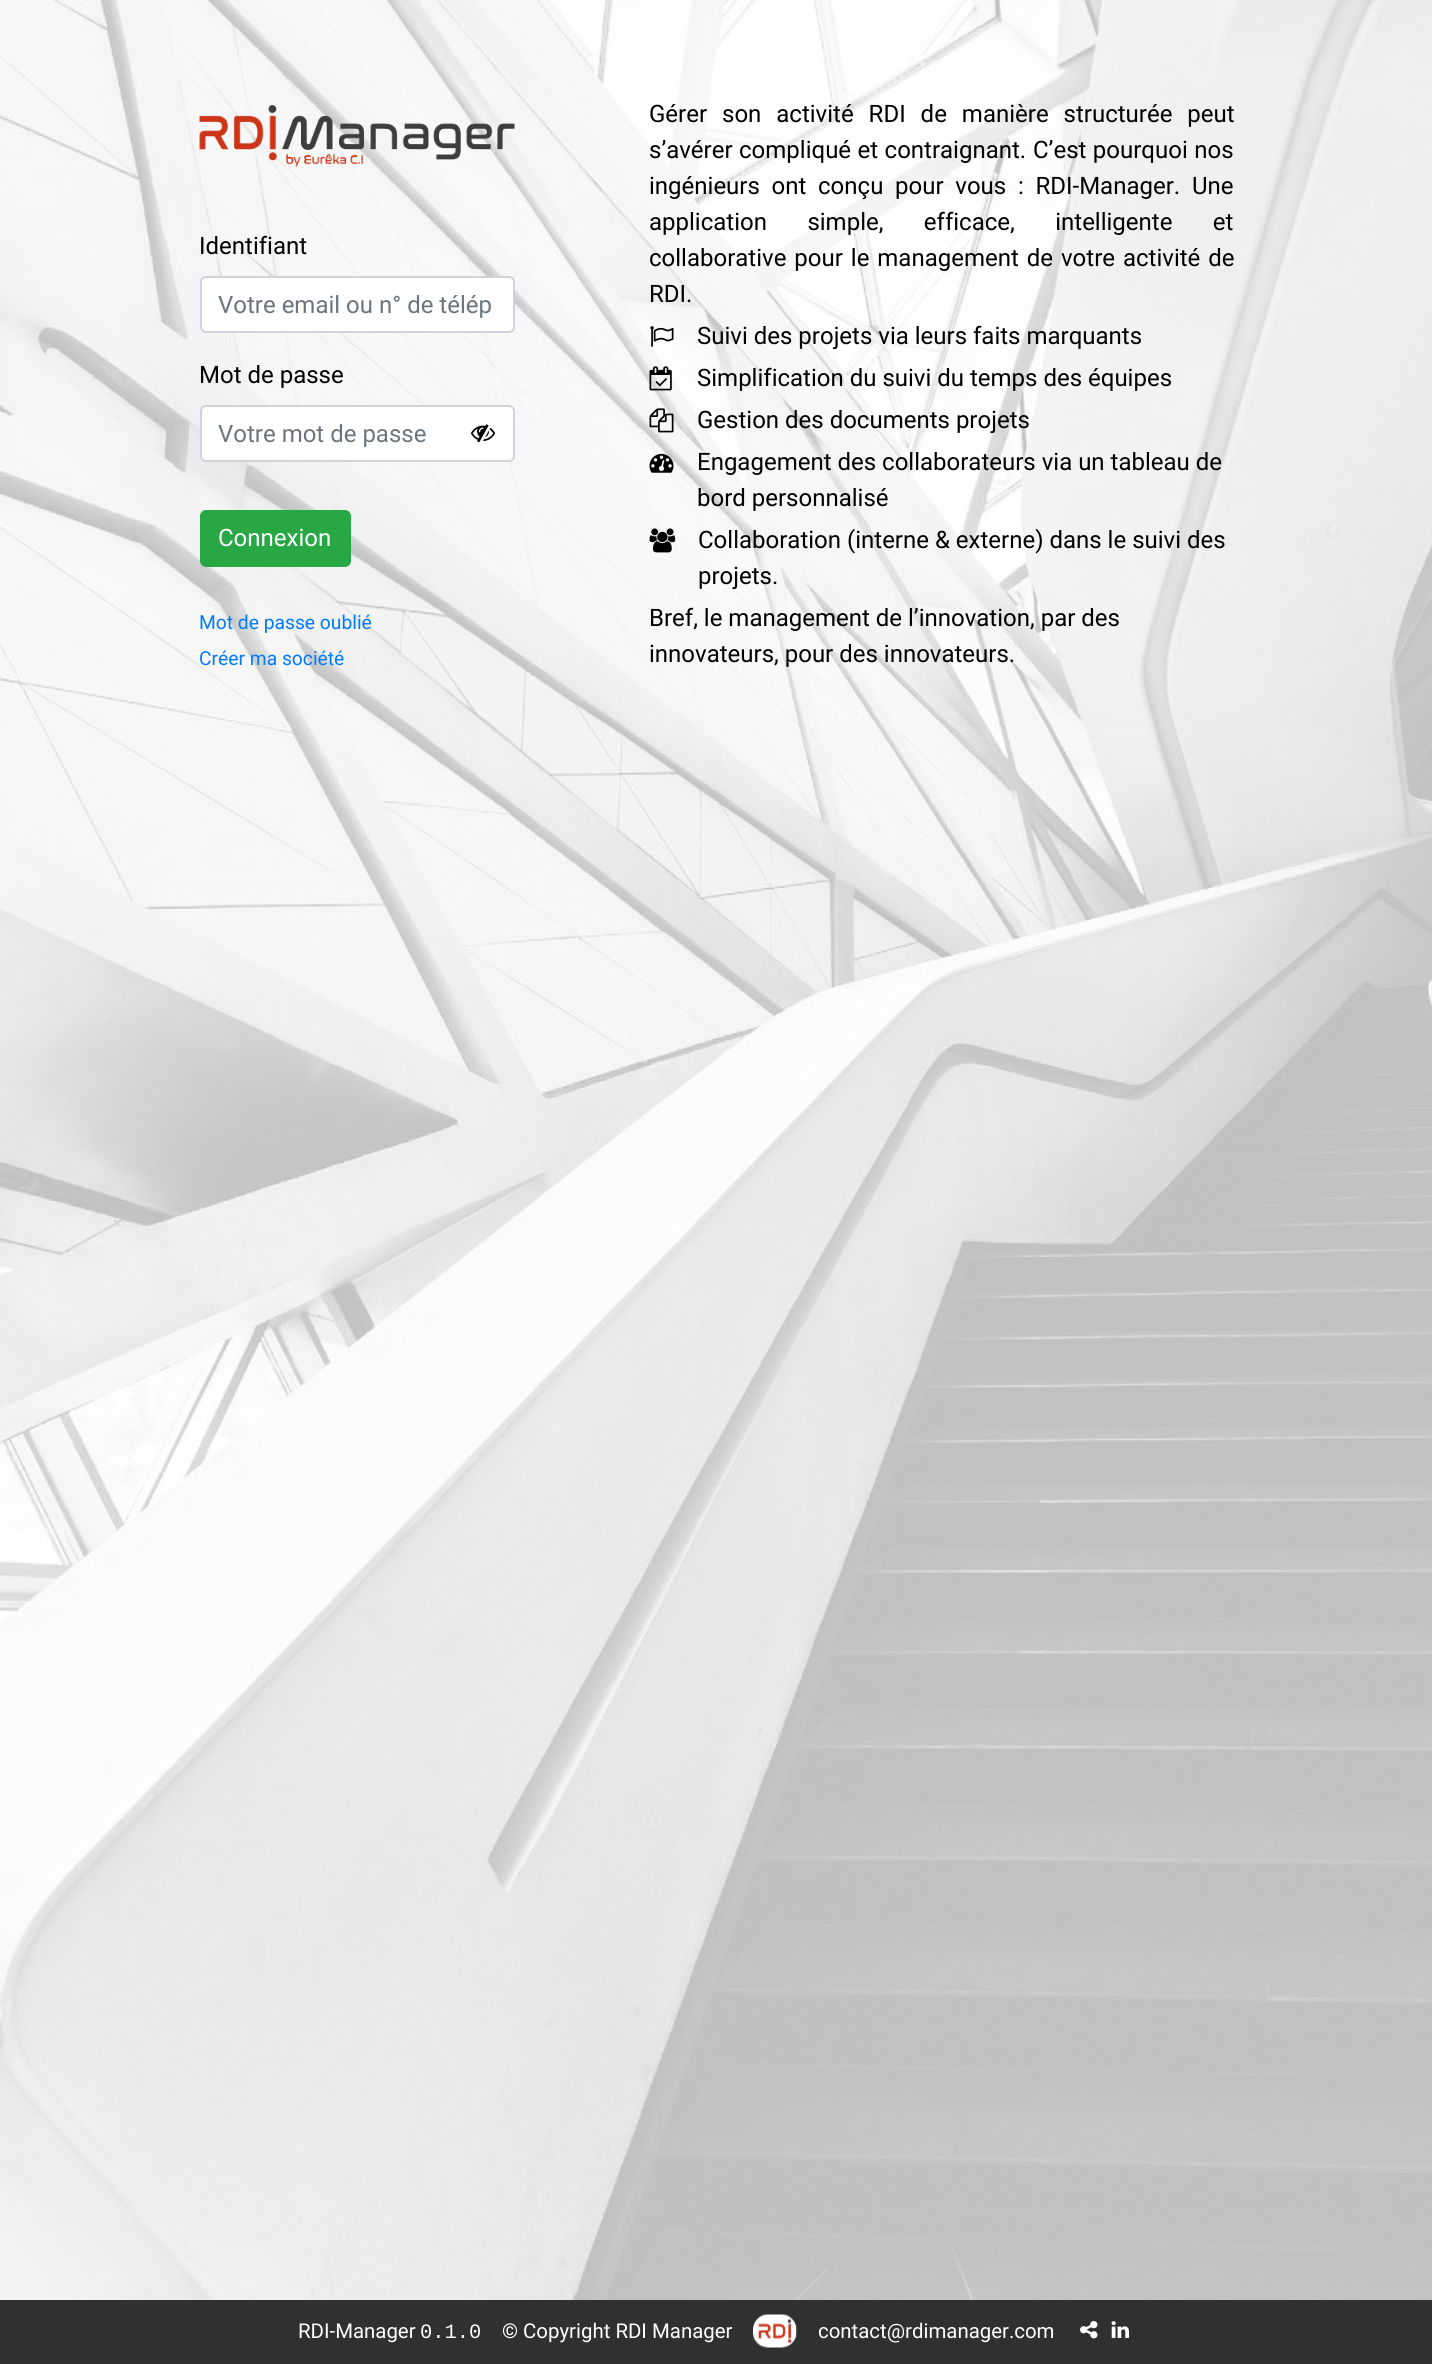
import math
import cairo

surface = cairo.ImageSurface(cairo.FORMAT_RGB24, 1432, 2364)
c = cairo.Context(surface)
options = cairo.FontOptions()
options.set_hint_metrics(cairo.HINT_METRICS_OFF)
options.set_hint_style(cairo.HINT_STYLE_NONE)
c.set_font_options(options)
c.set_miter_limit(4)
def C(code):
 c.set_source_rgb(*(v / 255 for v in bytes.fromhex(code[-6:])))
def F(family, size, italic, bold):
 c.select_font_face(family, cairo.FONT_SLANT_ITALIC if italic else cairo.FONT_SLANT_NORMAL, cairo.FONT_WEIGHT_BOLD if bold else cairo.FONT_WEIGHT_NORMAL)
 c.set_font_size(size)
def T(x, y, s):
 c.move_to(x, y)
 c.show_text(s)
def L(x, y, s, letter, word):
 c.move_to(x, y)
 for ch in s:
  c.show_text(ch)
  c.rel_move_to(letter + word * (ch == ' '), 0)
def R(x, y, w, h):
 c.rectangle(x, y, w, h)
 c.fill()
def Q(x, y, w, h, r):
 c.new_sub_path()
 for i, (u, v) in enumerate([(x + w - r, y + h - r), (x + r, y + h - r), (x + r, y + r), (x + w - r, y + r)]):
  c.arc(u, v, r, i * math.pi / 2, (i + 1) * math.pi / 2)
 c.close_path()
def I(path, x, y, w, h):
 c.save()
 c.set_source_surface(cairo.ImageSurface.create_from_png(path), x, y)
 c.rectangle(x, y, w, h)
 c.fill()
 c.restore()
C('ffffff')
c.paint()
I('1.png',0,0,1432,2300)
I('2.png',199,105,316,62)
F('Roboto',24,0,0)
C('000000')
T(199,254,'Identifiant')
C('ffffff')
Q(201,277,313,55,5)
c.fill_preserve()
C('ced4da')
c.stroke()
C('6c757d')
T(218,313,'Votre email ou n° de télép')
C('000000')
T(199,383,'Mot de passe')
C('ffffff')
Q(201,406,313,55,5)
c.fill_preserve()
C('ced4da')
c.stroke()
C('6c757d')
T(218,442,'Votre mot de passe')
I('3.png',471,424,24,19)
C('28a745')
Q(201,511,149,55,5)
c.fill_preserve()
c.stroke()
C('ffffff')
T(218,546,'Connexion')
F('Roboto',19.25,0,0)
C('007bff')
T(199,629,'Mot de passe oublié')
T(199,665,'Créer ma société')
F('Roboto',24,0,0)
C('000000')
L(649,122,'Gérer son activité RDI de manière structurée peut',0,9)
L(649,158,'s’avérer compliqué et contraignant.',0,.5)
L(1033,158,'C’est pourquoi nos',0,.5)
L(649,194,'ingénieurs ont conçu pour vous : RDI-Manager.',0,5.75)
T(1192,194,'Une')
L(649,230,'application simple, efficace, intelligente et',0,34.5)
L(649,266,'collaborative pour le management de votre activité de',0,2)
T(649,302,'RDI.')
I('4.png',650,326,24,21)
T(697,344,'Suivi des projets via leurs faits marquants')
I('5.png',649,366,23,25)
T(697,386,'Simplification du suivi du temps des équipes')
I('6.png',649,408,25,25)
T(697,428,'Gestion des documents projets')
I('7.png',649,453,25,20)
T(697,470,'Engagement des collaborateurs via un tableau de')
T(697,506,'bord personnalisé')
I('8.png',649,528,27,25)
T(698,548,'Collaboration (interne & externe) dans le suivi des')
T(698,584,'projets.')
T(649,626,'Bref, le management de l’innovation, par des')
T(649,662,'innovateurs, pour des innovateurs.')
C('303030')
R(0,2300,1432,64)
F('Roboto',20.4,0,0)
C('ffffff')
T(298,2338,'RDI-Manager')
F('Liberation Mono',20.4,0,0)
T(420,2338,'0.1.0')
F('Roboto',20.4,0,0)
T(502,2338,'© Copyright RDI Manager')
I('9.png',753,2314,44,34)
T(818,2338,'contact@rdimanager.com')
I('10.png',1080,2321,18,18)
I('11.png',1111,2321,18,17)
surface.write_to_png('o.png')
